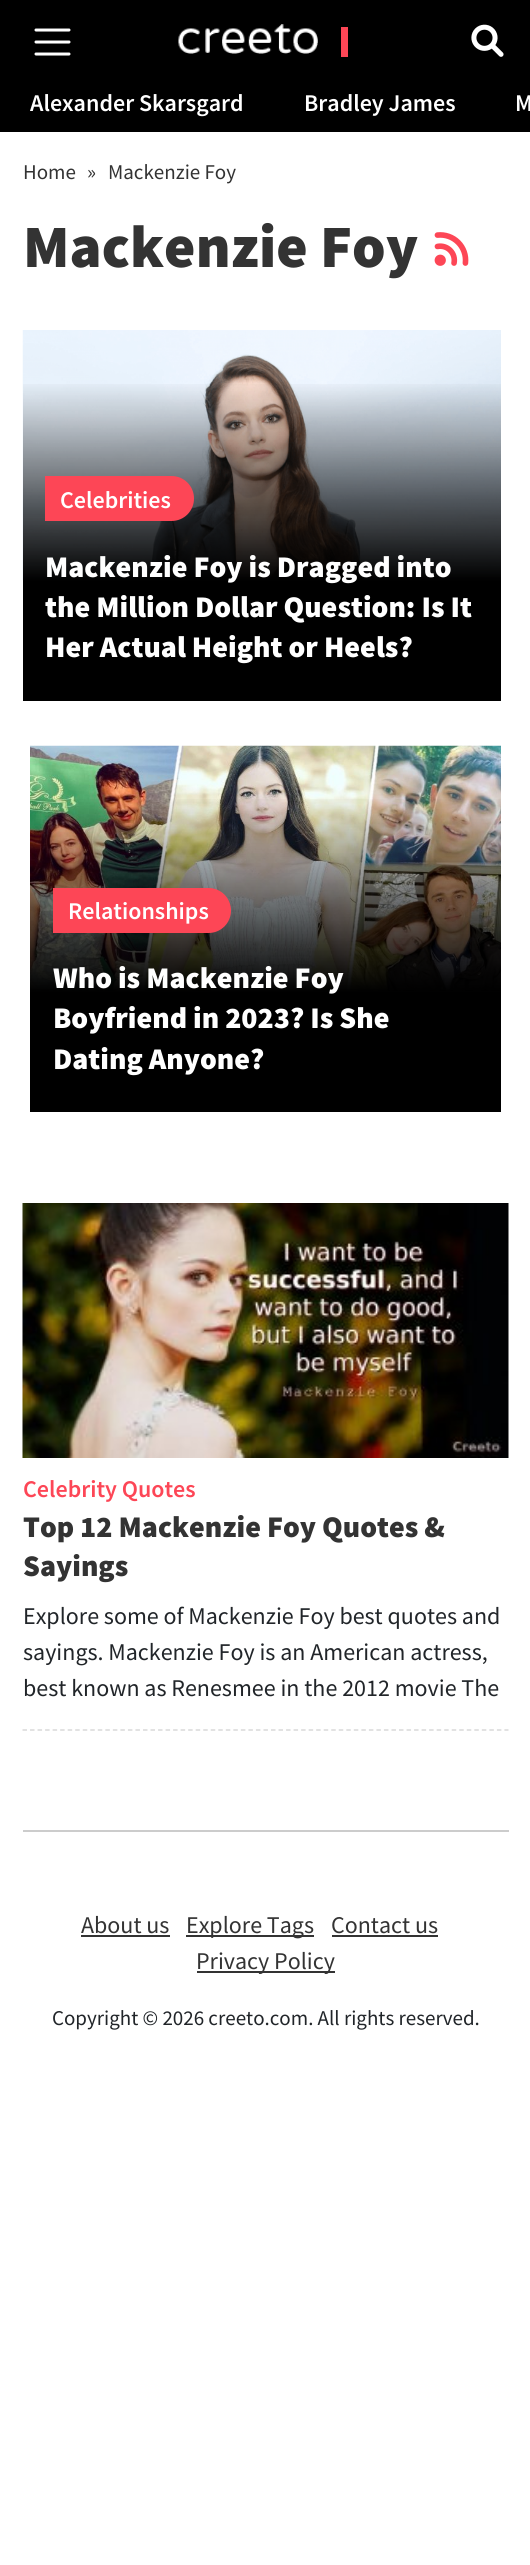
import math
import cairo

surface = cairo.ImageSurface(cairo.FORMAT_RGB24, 530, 2565)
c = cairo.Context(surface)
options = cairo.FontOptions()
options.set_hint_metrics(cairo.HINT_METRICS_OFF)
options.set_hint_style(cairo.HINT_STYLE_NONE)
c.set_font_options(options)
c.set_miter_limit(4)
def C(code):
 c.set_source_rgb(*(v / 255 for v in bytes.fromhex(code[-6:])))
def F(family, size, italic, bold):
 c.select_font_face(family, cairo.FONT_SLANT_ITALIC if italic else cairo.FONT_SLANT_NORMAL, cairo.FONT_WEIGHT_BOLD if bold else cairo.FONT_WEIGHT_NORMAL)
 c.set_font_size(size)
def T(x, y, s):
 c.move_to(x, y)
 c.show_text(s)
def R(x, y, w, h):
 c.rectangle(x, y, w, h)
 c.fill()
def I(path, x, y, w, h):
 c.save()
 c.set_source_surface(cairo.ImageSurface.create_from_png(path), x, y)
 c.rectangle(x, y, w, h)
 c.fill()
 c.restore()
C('ffffff')
c.paint()
C('000000')
R(0,0,530,132)
c.new_path()
c.move_to(36,30)
c.line_to(69,30)
c.move_to(36,42)
c.line_to(69,42)
c.move_to(36,54)
c.line_to(69,54)
C('ffffff')
c.set_line_width(3)
c.set_line_cap(cairo.LINE_CAP_ROUND)
c.stroke()
C('fd4656')
R(341,27,7,30)
I('1.png',178,24,140,30)
I('2.png',471,24,33,33)
F('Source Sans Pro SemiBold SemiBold',24,0,0)
C('ffffff')
T(30,111,'Alexander Skarsgard')
T(304,111,'Bradley James')
T(515,111,'M')
F('Source Sans Pro',21,0,0)
C('333333')
T(23,179,'Home')
T(87,179,'»')
T(108,179,'Mackenzie Foy')
F('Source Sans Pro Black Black',60,0,0)
T(23,267,'Mackenzie Foy')
I('3.png',434,232,35,34)
C('000000')
R(23,581,478,120)
I('4.png',22,330,479,251)
gradient = cairo.LinearGradient(262,380,262,581)
gradient.add_color_stop_rgba(0,0,0,0,0)
gradient.add_color_stop_rgba(1,0,0,0,1)
c.set_source(gradient)
R(23,384,478,197)
C('fd4656')
c.new_path()
c.move_to(45,476)
c.line_to(171.5,476)
c.curve_to(184,476,194,486,194,498.5)
c.curve_to(194,511,184,521,171.5,521)
c.line_to(45,521)
c.close_path()
c.fill()
F('Source Sans Pro SemiBold SemiBold',24,0,0)
C('ffffff')
T(60,508,'Celebrities')
F('Source Sans Pro Black Black',30,0,0)
T(45,577,'Mackenzie Foy is Dragged into')
T(45,617,'the Million Dollar Question: Is It')
T(45,657,'Her Actual Height or Heels?')
C('000000')
R(30,992,471,120)
I('5.png',30,745,471,246)
gradient = cairo.LinearGradient(266,795,266,992)
gradient.add_color_stop_rgba(0,0,0,0,0)
gradient.add_color_stop_rgba(1,0,0,0,1)
c.set_source(gradient)
R(30,799,471,193)
C('fd4656')
c.new_path()
c.move_to(53,888)
c.line_to(208.5,888)
c.curve_to(221,888,231,898,231,910.5)
c.curve_to(231,923,221,933,208.5,933)
c.line_to(53,933)
c.close_path()
c.fill()
F('Source Sans Pro SemiBold SemiBold',24,0,0)
C('ffffff')
T(68,919,'Relationships')
F('Source Sans Pro Black Black',30,0,0)
T(53,988,'Who is Mackenzie Foy')
T(53,1028,'Boyfriend in 2023? Is She')
T(53,1069,'Dating Anyone?')
c.new_path()
c.move_to(22.5,1730)
c.line_to(508.5,1730)
C('d9d9d9')
c.set_line_width(1.5)
c.set_line_cap(cairo.LINE_CAP_BUTT)
c.set_dash([4.5,3.03])
c.stroke()
I('6.png',22,1203,487,255)
F('Source Sans Pro SemiBold SemiBold',24,0,0)
C('fd4656')
T(23,1497,'Celebrity Quotes')
F('Source Sans Pro Black Black',30,0,0)
C('333333')
T(23,1537,'Top 12 Mackenzie Foy Quotes &')
T(23,1576,'Sayings')
F('Source Sans Pro',24,0,0)
C('212529')
T(23,1624,'Explore some of Mackenzie Foy best quotes and')
T(23,1660,'sayings. Mackenzie Foy is an American actress,')
T(23,1696,'best known as Renesmee in the 2012 movie The')
C('cccccc')
R(23,1830,486,2)
C('333333')
T(81,1933,'About us')
R(81,1935,89,2)
R(186,1935,128,2)
T(186,1933,'Explore Tags')
T(331,1933,'Contact us')
R(332,1935,106,2)
R(197,1971,138,2)
T(196,1969,'Privacy Policy')
F('Source Sans Pro',21,0,0)
C('212529')
T(52,2025,'Copyright © 2026 creeto.com. All rights reserved.')
surface.write_to_png('o.png')
